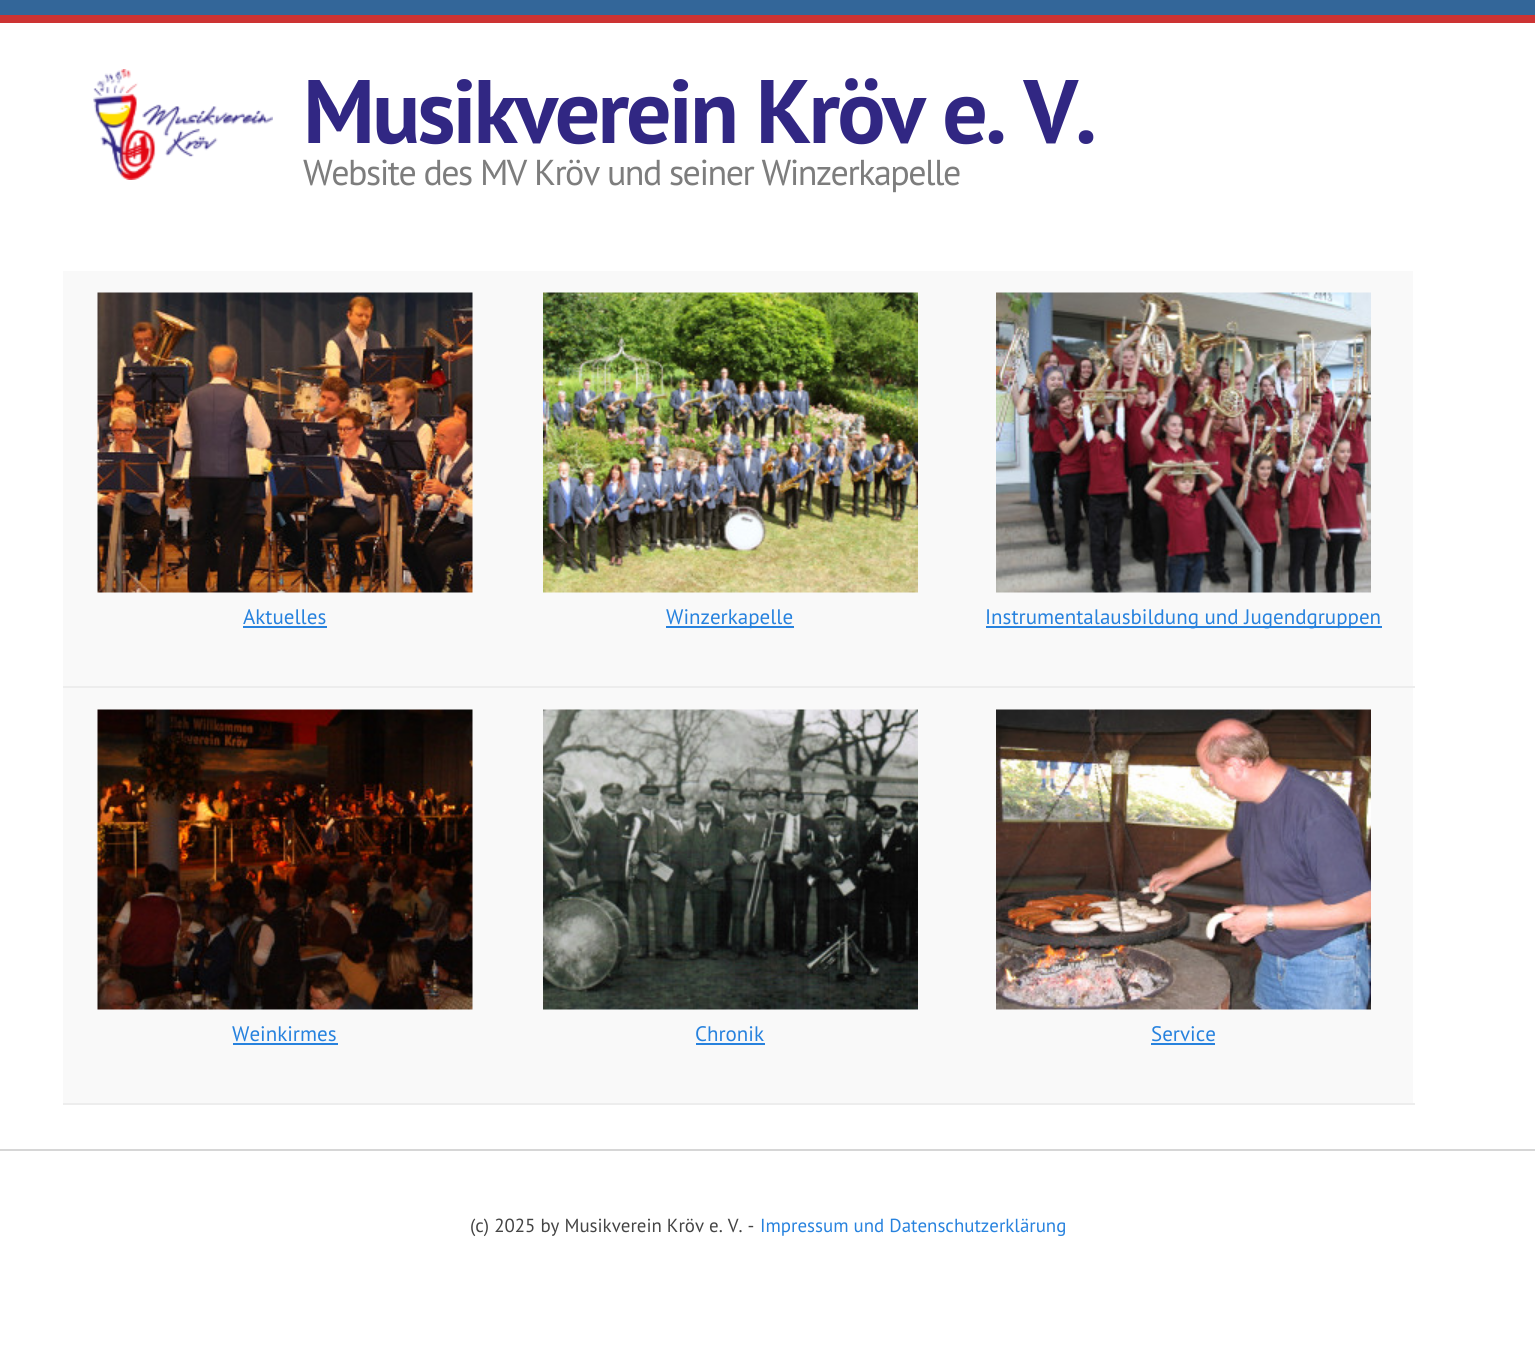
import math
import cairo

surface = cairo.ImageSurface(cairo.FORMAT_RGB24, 1535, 1361)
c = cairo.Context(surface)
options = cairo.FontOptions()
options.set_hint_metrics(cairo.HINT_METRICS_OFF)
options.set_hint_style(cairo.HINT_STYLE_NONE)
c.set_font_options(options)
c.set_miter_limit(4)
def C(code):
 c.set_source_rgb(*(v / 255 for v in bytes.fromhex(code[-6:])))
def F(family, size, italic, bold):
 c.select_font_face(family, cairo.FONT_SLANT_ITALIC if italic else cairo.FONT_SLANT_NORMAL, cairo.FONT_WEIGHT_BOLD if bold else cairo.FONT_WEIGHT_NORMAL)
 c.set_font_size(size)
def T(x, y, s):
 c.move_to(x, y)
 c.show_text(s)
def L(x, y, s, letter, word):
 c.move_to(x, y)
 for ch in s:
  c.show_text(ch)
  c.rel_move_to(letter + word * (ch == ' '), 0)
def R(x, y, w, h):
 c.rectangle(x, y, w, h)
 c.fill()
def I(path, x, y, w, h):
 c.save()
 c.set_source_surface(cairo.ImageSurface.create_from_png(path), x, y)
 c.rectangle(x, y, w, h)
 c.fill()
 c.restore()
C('ffffff')
c.paint()
C('336699')
R(0,0,1535,15)
C('cc3333')
R(0,15,1535,8)
I('1.png',93,69,180,111)
F('PT Sans',90,0,1)
C('312783')
L(303,143,'Musikverein Kröv e. V.',-3,0)
F('PT Sans',36,0,0)
C('7d7d7d')
L(303,185,'Website des MV Kröv und seiner Winzerkapelle',-1.5,0)
C('f9f9f9')
R(63,271,1350,415)
C('ededed')
R(63,686,1352,2)
I('2.png',97,292,376,301)
F('PT Sans',21,0,0)
C('2782de')
T(243,624,'Aktuelles')
R(243,626,84,2)
I('3.png',543,292,375,301)
R(666,626,128,2)
T(666,624,'Winzerkapelle')
I('4.png',996,292,375,301)
R(986,626,396,2)
T(985,624,'Instrumentalausbildung und Jugendgruppen')
C('f9f9f9')
R(63,688,1350,415)
C('ededed')
R(63,1103,1352,2)
I('5.png',97,709,376,301)
C('2782de')
T(232,1041,'Weinkirmes')
R(233,1043,105,2)
I('6.png',543,709,375,301)
T(695,1041,'Chronik')
R(696,1043,69,2)
I('7.png',996,709,375,301)
T(1151,1041,'Service')
R(1151,1043,64,2)
C('d6d6d6')
R(0,1149,1535,2)
F('PT Sans',18.9,0,0)
C('444444')
T(470,1232,'(c) 2025 by Musikverein Kröv e. V. -')
C('2782de')
T(760,1232,'Impressum und Datenschutzerklärung')
surface.write_to_png('o.png')
